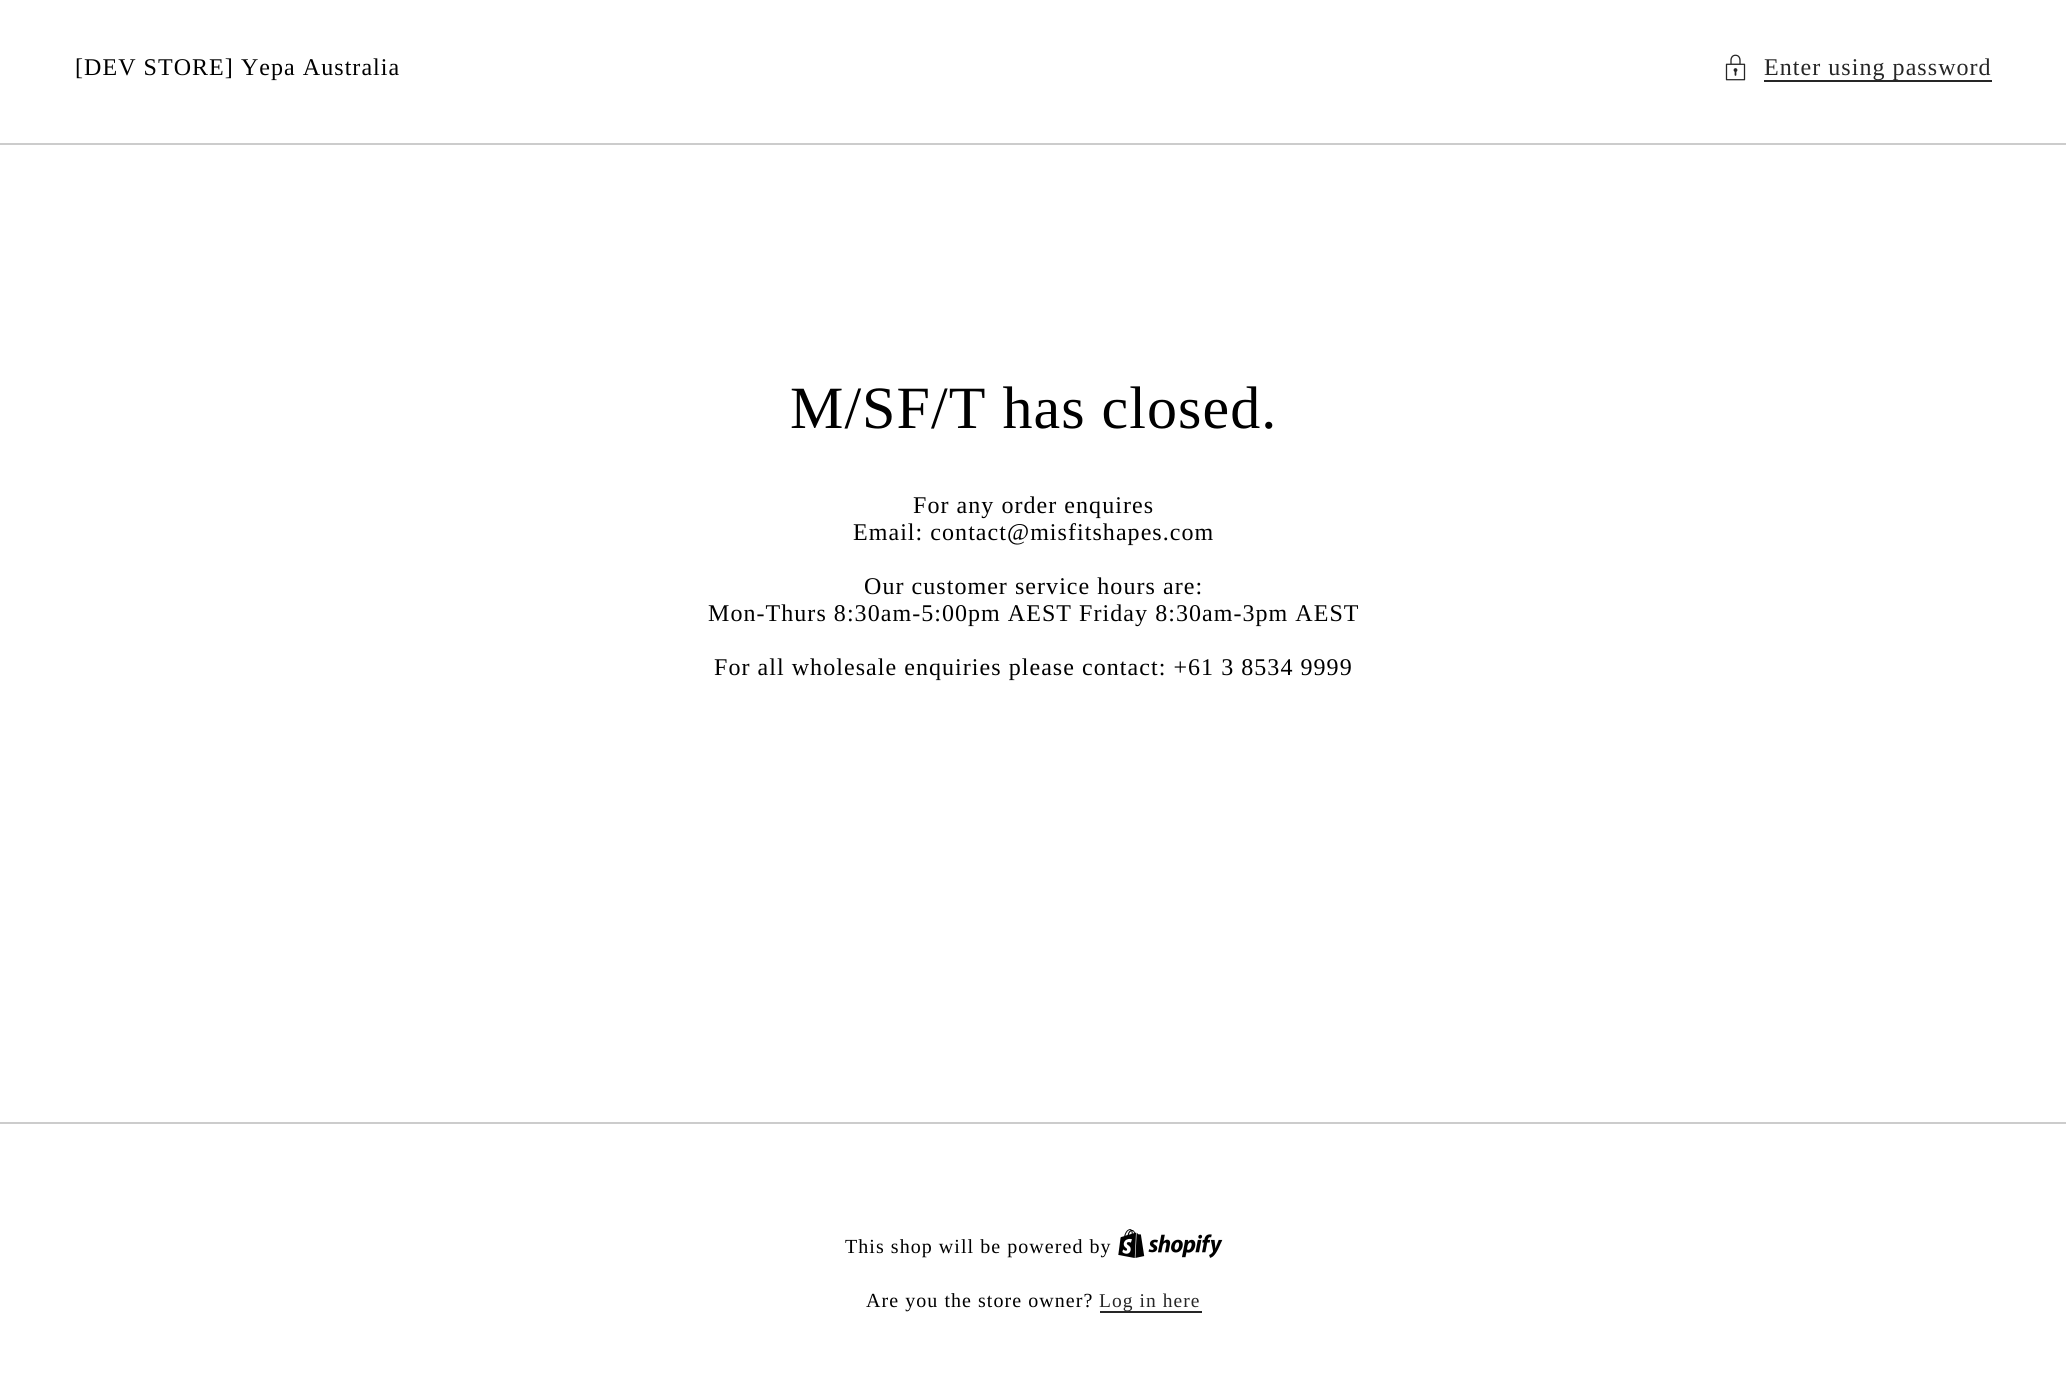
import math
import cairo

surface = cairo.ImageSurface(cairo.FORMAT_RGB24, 2066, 1378)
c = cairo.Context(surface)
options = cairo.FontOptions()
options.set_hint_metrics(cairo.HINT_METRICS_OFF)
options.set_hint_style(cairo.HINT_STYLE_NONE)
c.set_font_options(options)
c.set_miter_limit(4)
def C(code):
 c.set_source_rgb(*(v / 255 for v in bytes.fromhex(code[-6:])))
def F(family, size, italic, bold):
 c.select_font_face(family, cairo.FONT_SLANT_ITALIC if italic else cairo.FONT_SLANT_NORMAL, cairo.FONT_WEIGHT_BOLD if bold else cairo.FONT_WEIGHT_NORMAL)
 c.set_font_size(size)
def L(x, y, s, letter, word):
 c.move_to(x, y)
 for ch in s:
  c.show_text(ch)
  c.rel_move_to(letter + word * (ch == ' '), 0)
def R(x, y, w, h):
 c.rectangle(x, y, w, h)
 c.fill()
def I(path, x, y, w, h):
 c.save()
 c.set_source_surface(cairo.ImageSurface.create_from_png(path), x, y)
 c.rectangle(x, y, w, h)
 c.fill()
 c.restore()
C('ffffff')
c.paint()
F('Liberation Serif',24,0,0)
C('000000')
L(75,75,'[DEV STORE] Yepa Australia',1.05,0)
I('1.png',1725,54,21,27)
C('262626')
R(1764,80,228,2)
L(1764,75,'Enter using password',1.05,0)
C('cccccc')
R(0,143,2066,2)
F('Liberation Serif',60,0,0)
C('000000')
L(790,428,'M/SF/T has closed.',1.05,0)
F('Liberation Serif',24,0,0)
L(913,513,'For any order enquires',1.05,0)
L(853,540,'Email: contact@misfitshapes.com',1.05,0)
L(864,594,'Our customer service hours are:',1.05,0)
L(708,621,'Mon-Thurs 8:30am-5:00pm AEST Friday 8:30am-3pm AEST',1.05,0)
L(714,675,'For all wholesale enquiries please contact: +61 3 8534 9999',1.05,0)
C('cccccc')
R(0,1122,2066,2)
F('Liberation Serif',20,0,0)
C('000000')
L(845,1253,'This shop will be powered by',1.05,0)
I('2.png',1118,1229,105,29)
L(866,1307,'Are you the store owner?',1.05,0)
C('262626')
R(1100,1311,102,2)
F('Liberation Serif',19.5,0,0)
L(1099,1307,'Log in here',1.05,0)
surface.write_to_png('o.png')
